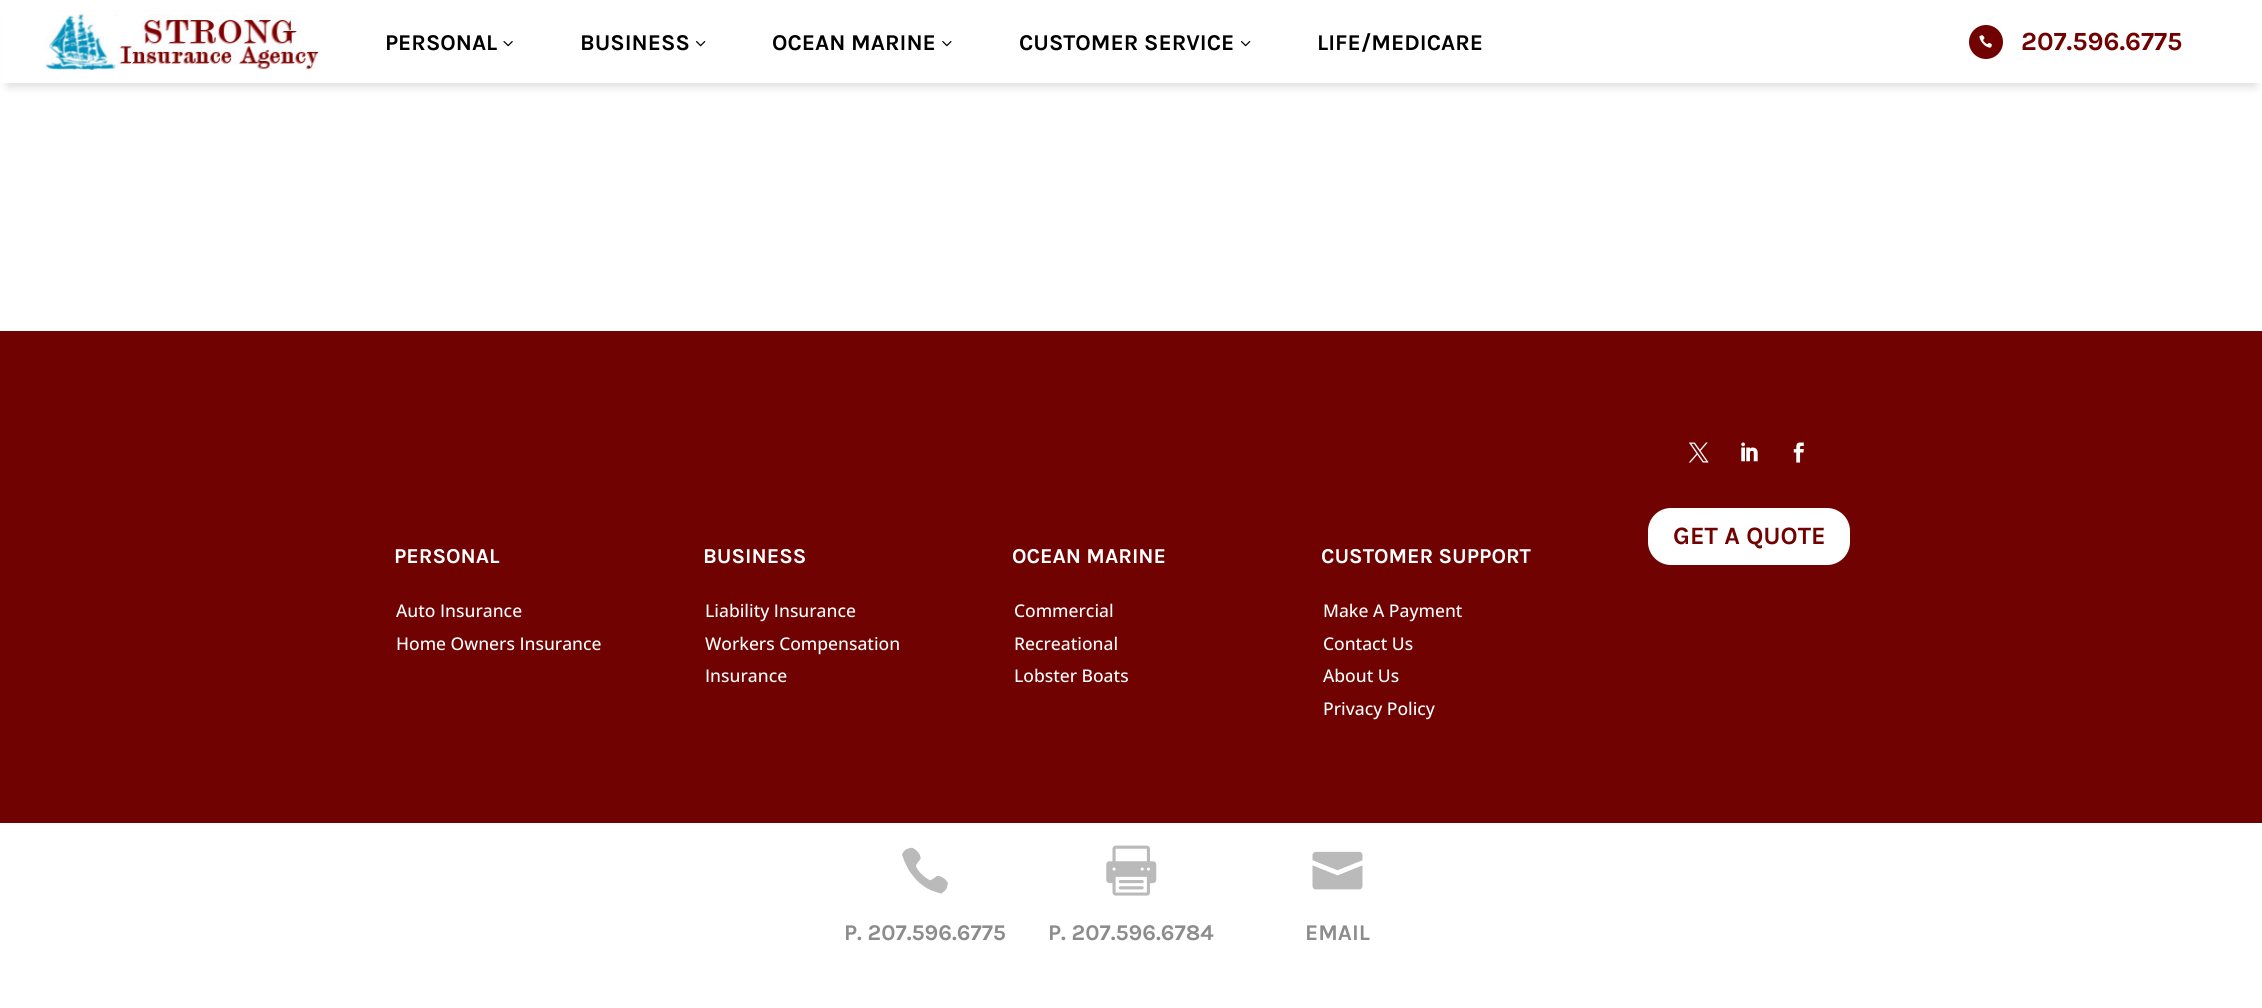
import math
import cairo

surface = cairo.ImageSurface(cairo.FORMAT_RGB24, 2262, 1008)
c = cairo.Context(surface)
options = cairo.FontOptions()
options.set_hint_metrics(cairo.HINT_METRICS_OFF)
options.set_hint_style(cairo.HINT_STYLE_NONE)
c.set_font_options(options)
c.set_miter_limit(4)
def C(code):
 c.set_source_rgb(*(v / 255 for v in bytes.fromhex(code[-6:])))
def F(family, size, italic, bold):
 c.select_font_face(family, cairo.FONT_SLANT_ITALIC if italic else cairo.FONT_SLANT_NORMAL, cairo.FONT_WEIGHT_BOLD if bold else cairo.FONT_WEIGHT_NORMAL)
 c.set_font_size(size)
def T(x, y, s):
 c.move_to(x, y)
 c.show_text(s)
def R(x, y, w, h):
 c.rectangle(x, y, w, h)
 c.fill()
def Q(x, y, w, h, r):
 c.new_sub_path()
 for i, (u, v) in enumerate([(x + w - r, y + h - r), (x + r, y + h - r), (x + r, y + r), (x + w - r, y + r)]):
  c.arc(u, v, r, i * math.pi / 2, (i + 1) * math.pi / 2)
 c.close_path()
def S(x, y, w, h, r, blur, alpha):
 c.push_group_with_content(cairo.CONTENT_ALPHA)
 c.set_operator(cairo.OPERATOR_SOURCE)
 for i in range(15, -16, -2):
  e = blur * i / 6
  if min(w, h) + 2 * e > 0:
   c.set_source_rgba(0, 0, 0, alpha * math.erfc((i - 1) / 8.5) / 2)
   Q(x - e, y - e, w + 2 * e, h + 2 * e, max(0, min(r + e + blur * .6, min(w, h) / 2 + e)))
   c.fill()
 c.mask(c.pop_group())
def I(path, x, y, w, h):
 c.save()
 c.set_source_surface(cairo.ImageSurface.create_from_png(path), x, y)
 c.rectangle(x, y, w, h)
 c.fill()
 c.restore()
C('ffffff')
c.paint()
C('000000')
S(8,19,2247,67,0,5,.15)
C('ffffff')
R(1,12,2261,71)
I('1.png',45,13,275,57)
F('Karla',22.6,0,1)
C('000000')
T(385,50,'PERSONAL')
I('2.png',503,41,10,6)
T(580,50,'BUSINESS')
I('3.png',696,41,10,6)
T(772,50,'OCEAN MARINE')
I('4.png',942,41,10,6)
T(1019,50,'CUSTOMER SERVICE')
I('3.png',1241,41,10,6)
T(1317,50,'LIFE/MEDICARE')
C('700302')
c.new_path()
c.arc(1986,42,17,0,2 * math.pi)
c.fill()
I('5.png',1979,35,13,13)
F('Karla',26.25,0,1)
T(2021,50,'207.596.6775')
R(0,331,2262,492)
I('6.png',1688,442,21,21)
I('7.png',1741,442,17,20)
I('8.png',1793,442,11,21)
C('ffffff')
Q(1646.5,506.5,205,60,24.5)
c.fill_preserve()
C('700302')
c.set_line_width(3)
c.stroke()
F('Karla',25,0,1)
T(1673,544,'GET A QUOTE')
F('Karla',21.25,0,1)
C('ffffff')
T(394,563,'PERSONAL')
F('Open Sans Medium',17.5,0,0)
T(396,617,'Auto Insurance')
T(396,650,'Home Owners Insurance')
F('Karla',21.25,0,1)
T(703,563,'BUSINESS')
F('Open Sans Medium',17.5,0,0)
T(705,617,'Liability Insurance')
T(705,650,'Workers Compensation')
T(705,682,'Insurance')
F('Karla',21.25,0,1)
T(1012,563,'OCEAN MARINE')
F('Open Sans Medium',17.5,0,0)
T(1014,617,'Commercial')
T(1014,650,'Recreational')
T(1014,682,'Lobster Boats')
F('Karla',21.25,0,1)
T(1321,563,'CUSTOMER SUPPORT')
F('Open Sans Medium',17.5,0,0)
T(1323,617,'Make A Payment')
T(1323,650,'Contact Us')
T(1323,682,'About Us')
T(1323,715,'Privacy Policy')
I('9.png',902,847,46,47)
F('Karla',22.5,0,1)
C('8c8c8c')
T(844,940,'P. 207.596.6775')
I('10.png',1106,845,51,51)
T(1048,940,'P. 207.596.6784')
I('11.png',1312,851,51,39)
T(1305,940,'EMAIL')
surface.write_to_png('o.png')
